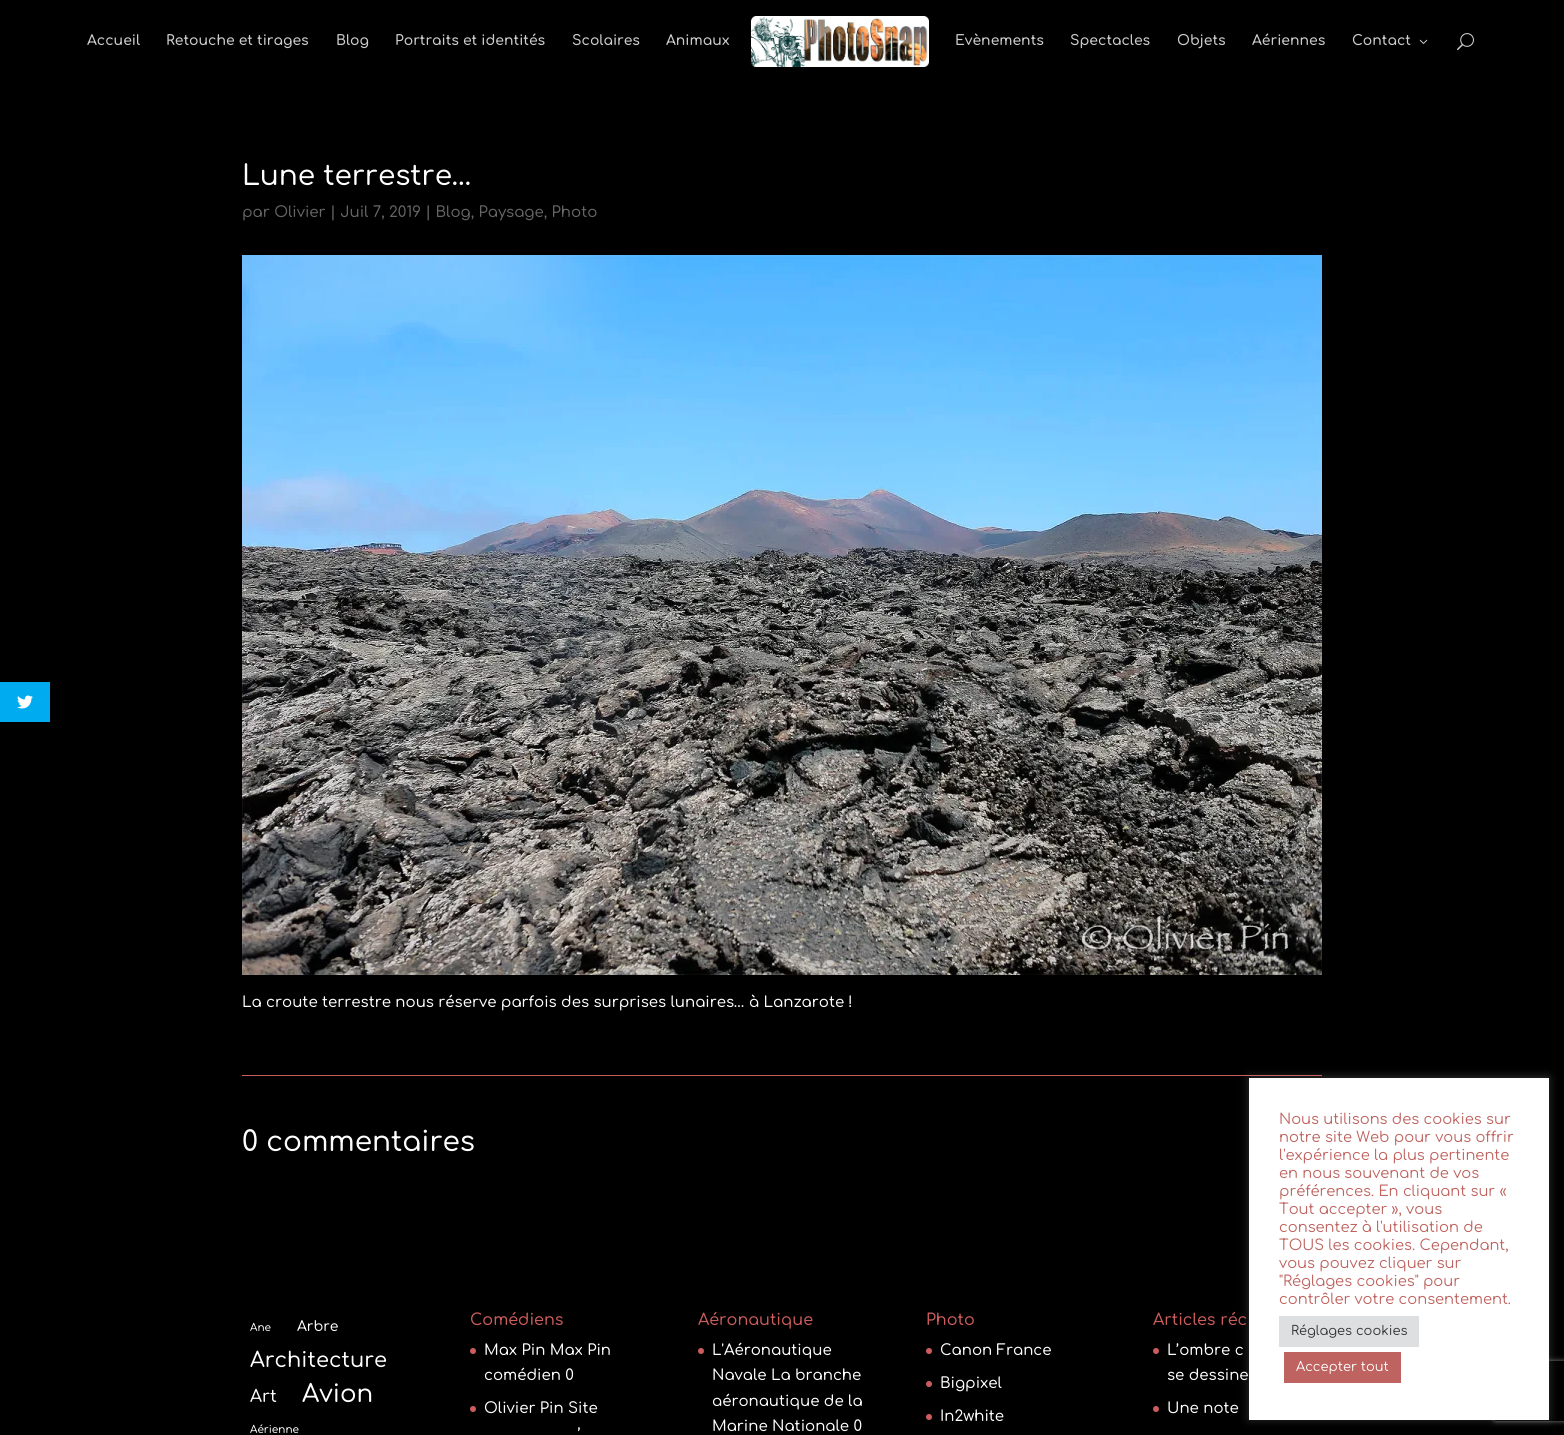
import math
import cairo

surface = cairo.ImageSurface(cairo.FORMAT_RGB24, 1564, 1435)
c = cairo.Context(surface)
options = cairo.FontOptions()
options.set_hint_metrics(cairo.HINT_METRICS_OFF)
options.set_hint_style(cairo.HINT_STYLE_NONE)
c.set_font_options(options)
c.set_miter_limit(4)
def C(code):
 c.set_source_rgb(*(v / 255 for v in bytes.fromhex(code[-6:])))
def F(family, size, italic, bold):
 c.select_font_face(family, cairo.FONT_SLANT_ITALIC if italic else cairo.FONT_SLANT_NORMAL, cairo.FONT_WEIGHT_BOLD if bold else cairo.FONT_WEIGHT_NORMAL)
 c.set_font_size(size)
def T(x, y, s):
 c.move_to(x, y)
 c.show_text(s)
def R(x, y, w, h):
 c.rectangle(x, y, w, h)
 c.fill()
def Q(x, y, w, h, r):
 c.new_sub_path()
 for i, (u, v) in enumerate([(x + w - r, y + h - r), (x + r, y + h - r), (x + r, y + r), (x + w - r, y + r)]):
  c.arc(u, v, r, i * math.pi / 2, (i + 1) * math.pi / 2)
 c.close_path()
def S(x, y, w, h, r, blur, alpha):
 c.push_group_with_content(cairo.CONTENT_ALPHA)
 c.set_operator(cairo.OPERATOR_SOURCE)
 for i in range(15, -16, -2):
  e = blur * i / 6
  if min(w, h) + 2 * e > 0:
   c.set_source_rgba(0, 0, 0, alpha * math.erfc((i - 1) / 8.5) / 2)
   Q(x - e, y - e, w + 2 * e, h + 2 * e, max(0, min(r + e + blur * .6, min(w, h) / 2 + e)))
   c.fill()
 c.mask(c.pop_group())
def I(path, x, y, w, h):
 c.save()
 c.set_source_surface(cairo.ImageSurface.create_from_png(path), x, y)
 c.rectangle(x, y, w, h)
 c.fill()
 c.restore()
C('000000')
c.paint()
C('00abf0')
R(0,682,50,40)
I('1.png',17,695,16,14)
F('Comfortaa SemiBold',14,0,0)
C('cccccc')
T(87,45,'Accueil')
T(166,45,'Retouche et tirages')
T(336,45,'Blog')
T(395,45,'Portraits et identités')
T(572,45,'Scolaires')
T(666,45,'Animaux')
I('2.png',751,16,178,51)
T(955,45,'Evènements')
T(1070,45,'Spectacles')
T(1177,45,'Objets')
T(1252,45,'Aériennes')
T(1352,45,'Contact')
I('3.png',1419,39,9,5)
I('4.png',1457,33,17,18)
F('Comfortaa Medium',28,0,0)
C('ffffff')
T(242,185,'Lune terrestre…')
F('Comfortaa Medium',15,0,0)
C('666666')
T(242,217,'par Olivier | Juil 7, 2019 | Blog, Paysage, Photo')
I('5.png',242,255,1080,720)
C('ffffff')
T(242,1007,'La croute terrestre nous réserve parfois des surprises lunaires… à Lanzarote !')
C('cd5c5c')
R(242,1075,1080,1)
F('Comfortaa Medium',28,0,0)
C('ffffff')
T(242,1151,'0 commentaires')
F('Comfortaa Medium',10.5,0,0)
T(250,1331,'Ane')
F('Comfortaa Medium',14,0,0)
T(297,1331,'Arbre')
F('Comfortaa Medium',21,0,0)
T(250,1367,'Architecture')
F('Comfortaa Medium',17,0,0)
T(250,1402,'Art')
F('Comfortaa Medium',24.5,0,0)
T(302,1402,'Avion')
F('Comfortaa Medium',10.5,0,0)
T(250,1433,'Aérienne')
F('Comfortaa Medium',16,0,0)
C('cd5c5c')
T(470,1325,'Comédiens')
c.new_path()
c.arc(473,1351,3,0,2 * math.pi)
c.fill()
F('Comfortaa Medium',15,0,0)
C('ffffff')
T(484,1355,'Max Pin Max Pin')
T(484,1380,'comédien 0')
C('cd5c5c')
c.new_path()
c.arc(473,1409,3,0,2 * math.pi)
c.fill()
C('ffffff')
T(484,1413,'Olivier Pin Site')
T(578,1439,'’')
F('Comfortaa Medium',16,0,0)
C('cd5c5c')
T(698,1325,'Aéronautique')
c.new_path()
c.arc(701,1351,3,0,2 * math.pi)
c.fill()
F('Comfortaa Medium',15,0,0)
C('ffffff')
T(712,1355,'L\'Aéronautique')
T(712,1380,'Navale La branche')
T(712,1406,'aéronautique de la')
T(712,1431,'Marine Nationale 0')
F('Comfortaa Medium',16,0,0)
C('cd5c5c')
T(926,1325,'Photo')
c.new_path()
c.arc(929,1351,3,0,2 * math.pi)
c.fill()
F('Comfortaa Medium',15,0,0)
C('ffffff')
T(940,1355,'Canon France')
C('cd5c5c')
c.new_path()
c.arc(929,1384,3,0,2 * math.pi)
c.fill()
C('ffffff')
T(940,1388,'Bigpixel')
C('cd5c5c')
c.new_path()
c.arc(929,1417,3,0,2 * math.pi)
c.fill()
C('ffffff')
T(940,1421,'In2white')
F('Comfortaa Medium',16,0,0)
C('cd5c5c')
T(1153,1325,'Articles réc')
c.new_path()
c.arc(1156,1351,3,0,2 * math.pi)
c.fill()
F('Comfortaa Medium',15,0,0)
C('ffffff')
T(1167,1355,'L’ombre c')
T(1167,1380,'se dessine')
C('cd5c5c')
c.new_path()
c.arc(1156,1409,3,0,2 * math.pi)
c.fill()
C('ffffff')
T(1167,1413,'Une note')
C('acabab')
S(1249,1077,300,342,0,5,.3)
c.save()
c.set_fill_rule(cairo.FILL_RULE_EVEN_ODD)
c.new_path()
c.move_to(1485,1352)
c.line_to(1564,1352)
c.line_to(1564,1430)
c.line_to(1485,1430)
c.close_path()
c.move_to(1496,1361)
c.line_to(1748,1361)
c.curve_to(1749,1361,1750,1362,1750,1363)
c.line_to(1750,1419)
c.curve_to(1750,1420,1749,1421,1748,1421)
c.line_to(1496,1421)
c.curve_to(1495,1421,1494,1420,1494,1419)
c.line_to(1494,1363)
c.curve_to(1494,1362,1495,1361,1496,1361)
c.close_path()
c.clip()
C('808080')
S(1494,1361,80,60,2,2.5,1)
c.restore()
C('ffffff')
R(1249,1078,300,342)
F('Comfortaa',14.7,0,0)
C('be635f')
T(1279,1124,'Nous utilisons des cookies sur')
T(1279,1142,'notre site Web pour vous offrir')
T(1279,1160,'l\'expérience la plus pertinente')
T(1279,1178,'en nous souvenant de vos')
T(1279,1196,'préférences. En cliquant sur «')
T(1279,1214,'Tout accepter », vous')
T(1279,1232,'consentez à l\'utilisation de')
T(1279,1250,'TOUS les cookies. Cependant,')
T(1279,1268,'vous pouvez cliquer sur')
T(1279,1286,'"Réglages cookies" pour')
T(1279,1304,'contrôler votre consentement.')
C('dedfe0')
R(1279,1316,140,31)
F('Comfortaa',13,0,0)
C('333333')
T(1291,1335,'Réglages cookies')
C('be635f')
R(1284,1352,117,31)
C('ffffff')
T(1296,1371,'Accepter tout')
surface.write_to_png('o.png')
